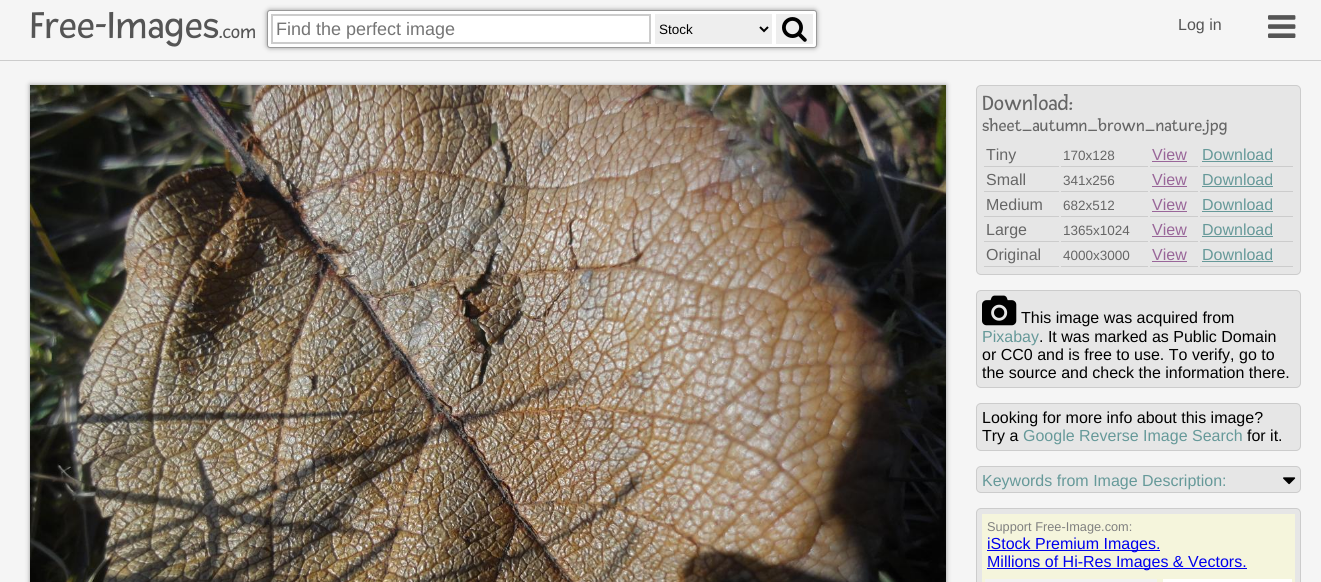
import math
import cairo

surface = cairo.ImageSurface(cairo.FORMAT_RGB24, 1321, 582)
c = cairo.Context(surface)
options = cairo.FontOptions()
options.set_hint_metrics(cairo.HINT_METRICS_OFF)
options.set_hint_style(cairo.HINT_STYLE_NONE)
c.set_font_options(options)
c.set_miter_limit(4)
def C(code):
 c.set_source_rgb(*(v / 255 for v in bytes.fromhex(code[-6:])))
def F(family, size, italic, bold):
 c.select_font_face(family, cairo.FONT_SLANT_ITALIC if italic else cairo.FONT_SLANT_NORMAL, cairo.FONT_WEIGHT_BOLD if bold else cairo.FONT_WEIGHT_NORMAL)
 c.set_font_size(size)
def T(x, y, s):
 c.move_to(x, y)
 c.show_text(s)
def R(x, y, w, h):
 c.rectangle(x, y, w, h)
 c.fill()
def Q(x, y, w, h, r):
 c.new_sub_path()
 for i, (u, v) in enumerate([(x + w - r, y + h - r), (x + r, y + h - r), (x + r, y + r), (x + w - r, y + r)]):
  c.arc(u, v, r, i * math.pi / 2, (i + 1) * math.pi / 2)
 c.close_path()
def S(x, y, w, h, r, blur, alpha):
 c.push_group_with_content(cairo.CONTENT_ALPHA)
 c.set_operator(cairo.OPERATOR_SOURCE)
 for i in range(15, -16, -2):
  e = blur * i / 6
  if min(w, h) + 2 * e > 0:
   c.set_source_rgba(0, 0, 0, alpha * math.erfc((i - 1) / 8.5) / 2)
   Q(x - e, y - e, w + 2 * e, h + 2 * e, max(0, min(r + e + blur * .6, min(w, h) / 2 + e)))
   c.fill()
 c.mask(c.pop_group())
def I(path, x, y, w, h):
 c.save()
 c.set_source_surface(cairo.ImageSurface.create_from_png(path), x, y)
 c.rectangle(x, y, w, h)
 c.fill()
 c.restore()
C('f5f5f5')
c.paint()
C('cccccc')
R(0,60,1321,1)
F('Fresca',40,0,0)
C('555555')
T(30,38,'Free-Images')
F('Fresca',20,0,0)
T(219,38,'.com')
C('999999')
S(267,10,550,38,3,2.5,1)
C('ffffff')
Q(267.5,10.5,549,37,2.5)
c.fill_preserve()
C('999999')
c.set_line_width(1)
c.stroke()
c.rectangle(272,15,378,28)
C('cccccc')
c.set_line_width(2)
c.stroke()
F('Liberation Sans',18,0,0)
C('757575')
T(276,35,'Find the perfect image')
C('eeeeee')
R(655,14,117,30)
c.new_path()
c.move_to(760,27)
c.line_to(764,31)
c.line_to(768,27)
C('000000')
c.stroke()
F('Liberation Sans',13.5,0,0)
T(659,34,'Stock')
C('eeeeee')
R(776,14,37,30)
I('1.png',782,17,25,25)
F('Liberation Sans',16,0,0)
C('555555')
T(1178,30,'Log in')
I('2.png',1268,15,28,23)
C('999999')
S(30,85,916,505,0,2.5,1)
I('3.png',30,85,916,497)
C('e6e6e6')
Q(976.5,85.5,324,189,4.5)
c.fill_preserve()
C('cccccc')
c.set_line_width(1)
c.stroke()
F('Fresca',22,0,0)
C('666666')
T(982,110,'Download:')
F('Fresca',17.6,0,0)
T(982,131,'sheet_autumn_brown_nature.jpg')
C('cccccc')
R(984,166,75,1)
F('Liberation Sans',16,0,0)
C('666666')
T(986,160,'Tiny')
C('cccccc')
R(1061,166,87,1)
F('Liberation Sans',13.5,0,0)
C('666666')
T(1063,160,'170x128')
C('cccccc')
R(1150,166,48,1)
F('Liberation Sans',16,0,0)
C('996699')
T(1152,160,'View')
R(1152,161,35,1)
C('cccccc')
R(1200,166,93,1)
C('669999')
T(1202,160,'Download')
R(1202,161,71,1)
C('cccccc')
R(984,191,75,1)
C('666666')
T(986,185,'Small')
C('cccccc')
R(1061,191,87,1)
F('Liberation Sans',13.5,0,0)
C('666666')
T(1063,185,'341x256')
C('cccccc')
R(1150,191,48,1)
F('Liberation Sans',16,0,0)
C('996699')
T(1152,185,'View')
R(1152,186,35,1)
C('cccccc')
R(1200,191,93,1)
C('669999')
T(1202,185,'Download')
R(1202,186,71,1)
C('cccccc')
R(984,216,75,1)
C('666666')
T(986,210,'Medium')
C('cccccc')
R(1061,216,87,1)
F('Liberation Sans',13.5,0,0)
C('666666')
T(1063,210,'682x512')
C('cccccc')
R(1150,216,48,1)
F('Liberation Sans',16,0,0)
C('996699')
T(1152,210,'View')
R(1152,211,35,1)
C('cccccc')
R(1200,216,93,1)
C('669999')
T(1202,210,'Download')
R(1202,211,71,1)
C('cccccc')
R(984,241,75,1)
C('666666')
T(986,235,'Large')
C('cccccc')
R(1061,241,87,1)
F('Liberation Sans',13.5,0,0)
C('666666')
T(1063,235,'1365x1024')
C('cccccc')
R(1150,241,48,1)
F('Liberation Sans',16,0,0)
C('996699')
T(1152,235,'View')
R(1152,236,35,1)
C('cccccc')
R(1200,241,93,1)
C('669999')
T(1202,235,'Download')
R(1202,236,71,1)
C('cccccc')
R(984,266,75,1)
C('666666')
T(986,260,'Original')
C('cccccc')
R(1061,266,87,1)
F('Liberation Sans',13.5,0,0)
C('666666')
T(1063,260,'4000x3000')
C('cccccc')
R(1150,266,48,1)
F('Liberation Sans',16,0,0)
C('996699')
T(1152,260,'View')
R(1152,261,35,1)
C('cccccc')
R(1200,266,93,1)
C('669999')
T(1202,260,'Download')
R(1202,261,71,1)
C('e6e6e6')
Q(976.5,290.5,324,97,4.5)
c.fill_preserve()
C('cccccc')
c.stroke()
I('4.png',982,295,35,31)
C('000000')
T(1021,323,'This image was acquired from')
C('669999')
T(982,342,'Pixabay')
C('000000')
T(1039,342,'. It was marked as Public Domain')
T(982,360,'or CC0 and is free to use. To verify, go to')
T(982,378,'the source and check the information there.')
C('e6e6e6')
Q(976.5,403.5,324,47,4.5)
c.fill_preserve()
C('cccccc')
c.stroke()
C('000000')
T(982,423,'Looking for more info about this image?')
T(982,441,'Try a')
C('669999')
T(1023,441,'Google Reverse Image Search')
C('000000')
T(1247,441,'for it.')
C('e6e6e6')
Q(976.5,466.5,324,26,4.5)
c.fill_preserve()
C('cccccc')
c.stroke()
C('669999')
T(982,486,'Keywords from Image Description:')
I('5.png',1283,477,13,8)
C('e6e6e6')
Q(976.5,508.5,324,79,4.5)
c.fill_preserve()
C('cccccc')
c.stroke()
C('f5f5dc')
R(982,514,313,68)
F('Liberation Sans',12.75,0,0)
C('808080')
T(987,531,'Support Free-Image.com:')
C('0000ee')
R(987,550,173,1)
F('Liberation Sans',16,0,0)
T(987,549,'iStock Premium Images.')
R(987,568,260,1)
T(987,567,'Millions of Hi-Res Images & Vectors.')
C('f2f2f2')
R(985,579,172,3)
C('ffffff')
R(1163,579,129,3)
surface.write_to_png('o.png')
